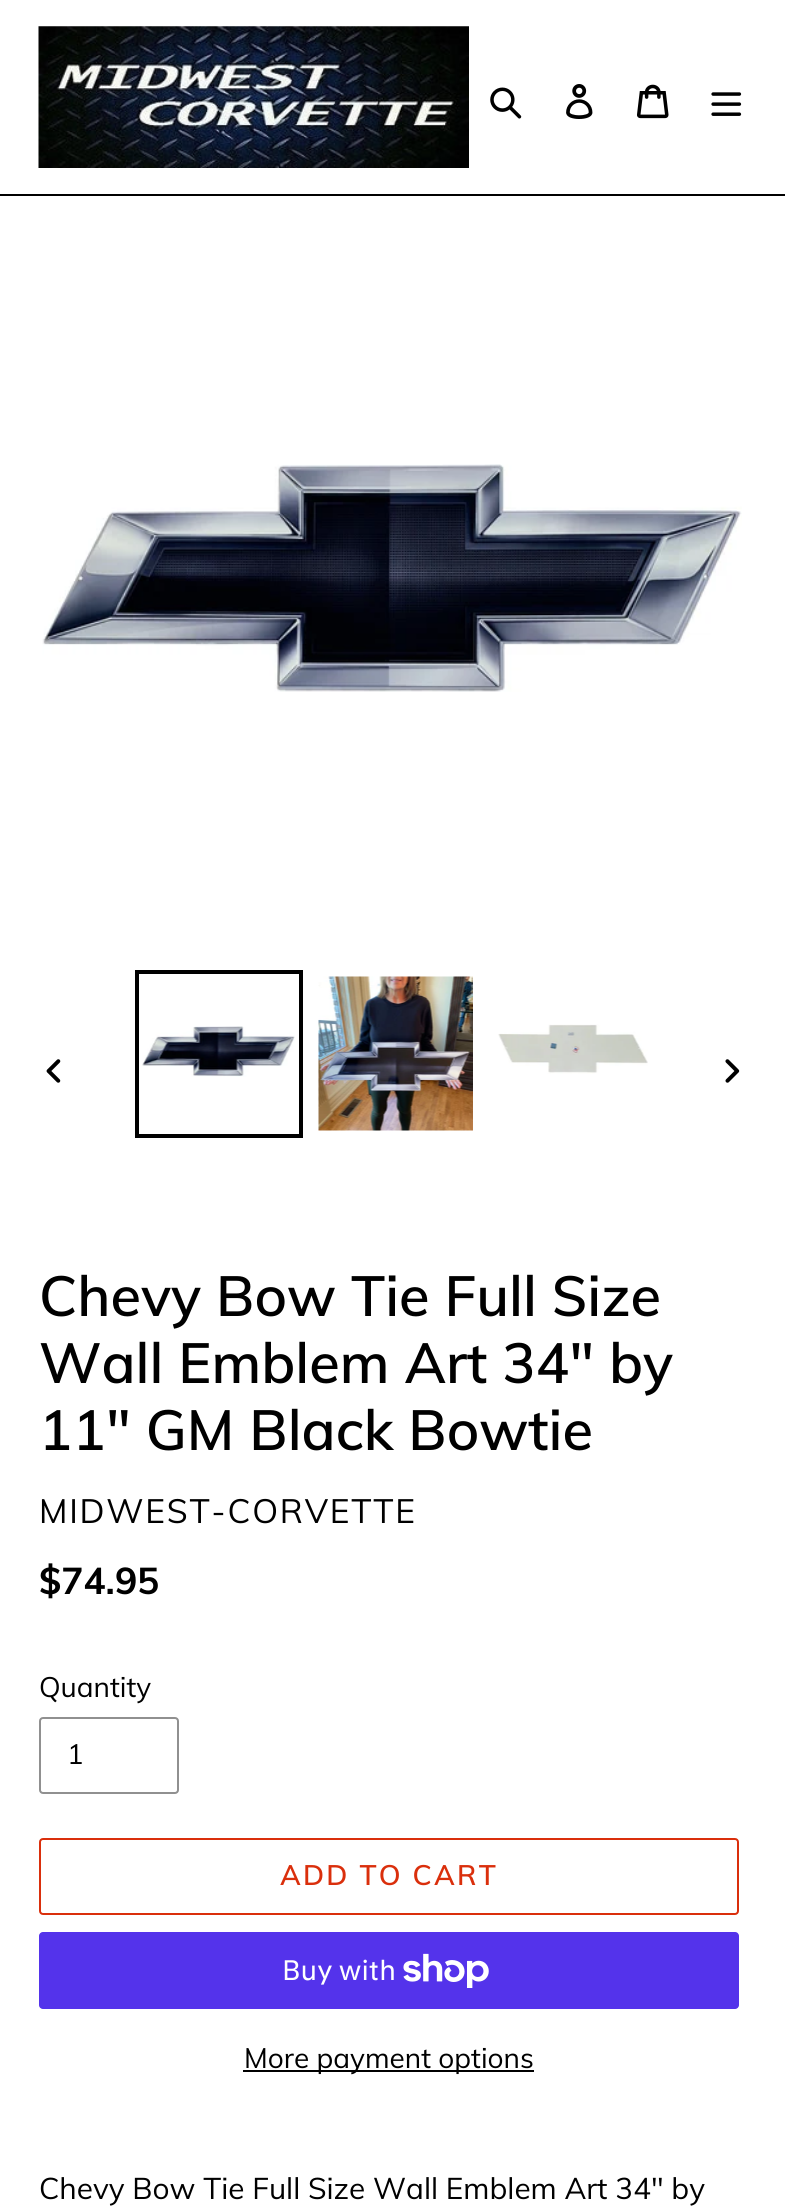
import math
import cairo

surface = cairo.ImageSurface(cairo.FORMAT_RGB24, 785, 2206)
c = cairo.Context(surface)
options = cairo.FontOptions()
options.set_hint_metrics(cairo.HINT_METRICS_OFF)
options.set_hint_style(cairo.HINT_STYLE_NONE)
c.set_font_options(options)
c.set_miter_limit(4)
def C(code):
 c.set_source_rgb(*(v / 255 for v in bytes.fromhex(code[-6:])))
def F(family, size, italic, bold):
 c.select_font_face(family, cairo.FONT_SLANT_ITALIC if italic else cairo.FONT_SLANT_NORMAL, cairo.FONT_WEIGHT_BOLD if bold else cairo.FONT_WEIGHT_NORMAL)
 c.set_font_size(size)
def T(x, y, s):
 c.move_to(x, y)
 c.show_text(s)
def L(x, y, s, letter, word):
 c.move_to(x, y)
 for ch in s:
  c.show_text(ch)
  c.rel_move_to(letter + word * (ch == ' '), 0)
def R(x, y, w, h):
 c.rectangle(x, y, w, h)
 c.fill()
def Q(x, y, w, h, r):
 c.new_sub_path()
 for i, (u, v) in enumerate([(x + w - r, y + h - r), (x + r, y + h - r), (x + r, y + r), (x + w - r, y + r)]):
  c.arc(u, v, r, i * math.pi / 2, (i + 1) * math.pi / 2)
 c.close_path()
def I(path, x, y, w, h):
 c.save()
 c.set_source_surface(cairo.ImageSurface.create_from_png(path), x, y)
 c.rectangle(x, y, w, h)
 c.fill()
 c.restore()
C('ffffff')
c.paint()
C('000000')
R(0,194,785,2)
I('1.png',38,26,431,142)
I('2.png',490,87,32,32)
I('3.png',566,84,27,35)
I('4.png',637,84,32,35)
I('5.png',711,92,31,24)
I('6.png',42,464,700,228)
I('7.png',46,1059,15,24)
c.rectangle(137,972,164,164)
c.set_line_width(4)
c.stroke()
I('8.png',142,1026,153,51)
I('9.png',318,976,155,155)
I('10.png',498,1024,150,50)
I('11.png',725,1059,15,24)
F('Muli SemiBold',56,0,0)
T(39,1316,'Chevy Bow Tie Full Size')
T(39,1383,'Wall Emblem Art 34" by')
T(39,1450,'11" GM Black Bowtie')
F('Muli',33.5,0,0)
L(39,1523,'MIDWEST-CORVETTE',1.75,0)
F('Muli',37,0,1)
T(39,1594,'$74.95')
F('Muli',28,0,0)
T(39,1697,'Quantity')
Q(40,1718,138,75,3)
C('909090')
c.set_line_width(2)
c.stroke()
C('000000')
T(67,1764,'1')
Q(40,1839,698,75,3)
C('da2f0c')
c.stroke()
F('Muli SemiBold',28,0,0)
L(280,1885,'ADD TO CART',2.25,0)
C('5433eb')
Q(39,1932,700,77,4)
c.fill()
F('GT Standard',28,0,0)
C('ffffff')
T(282,1980,'Buy with')
I('12.png',403,1953,86,35)
C('000000')
R(243,2070,291,2)
F('Muli',28,0,0)
T(244,2068,'More payment options')
F('Muli',29.75,0,0)
T(39,2199,'Chevy Bow Tie Full Size Wall Emblem Art 34" by')
surface.write_to_png('o.png')
